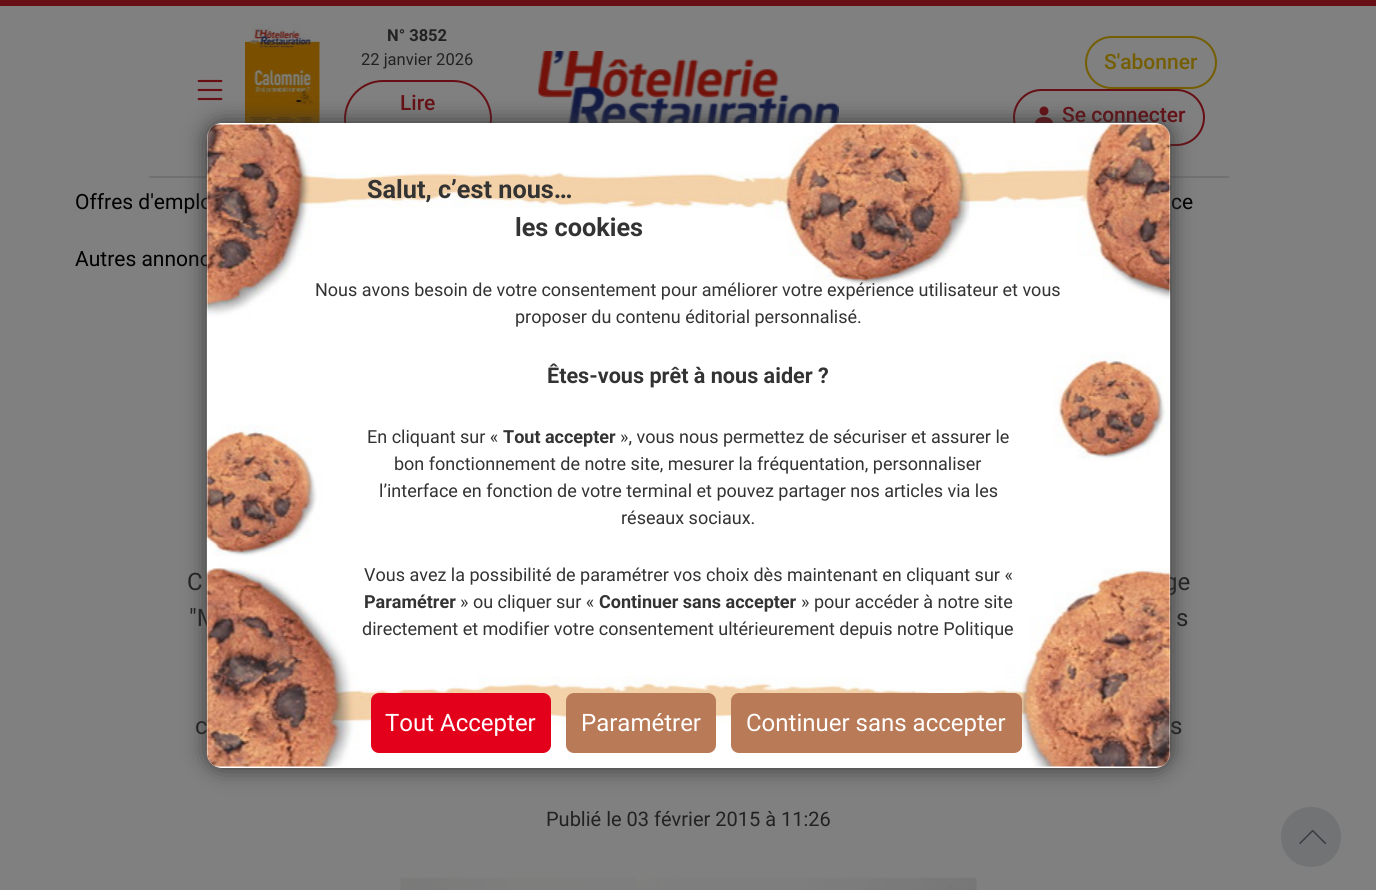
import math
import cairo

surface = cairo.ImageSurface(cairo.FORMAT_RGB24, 1376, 890)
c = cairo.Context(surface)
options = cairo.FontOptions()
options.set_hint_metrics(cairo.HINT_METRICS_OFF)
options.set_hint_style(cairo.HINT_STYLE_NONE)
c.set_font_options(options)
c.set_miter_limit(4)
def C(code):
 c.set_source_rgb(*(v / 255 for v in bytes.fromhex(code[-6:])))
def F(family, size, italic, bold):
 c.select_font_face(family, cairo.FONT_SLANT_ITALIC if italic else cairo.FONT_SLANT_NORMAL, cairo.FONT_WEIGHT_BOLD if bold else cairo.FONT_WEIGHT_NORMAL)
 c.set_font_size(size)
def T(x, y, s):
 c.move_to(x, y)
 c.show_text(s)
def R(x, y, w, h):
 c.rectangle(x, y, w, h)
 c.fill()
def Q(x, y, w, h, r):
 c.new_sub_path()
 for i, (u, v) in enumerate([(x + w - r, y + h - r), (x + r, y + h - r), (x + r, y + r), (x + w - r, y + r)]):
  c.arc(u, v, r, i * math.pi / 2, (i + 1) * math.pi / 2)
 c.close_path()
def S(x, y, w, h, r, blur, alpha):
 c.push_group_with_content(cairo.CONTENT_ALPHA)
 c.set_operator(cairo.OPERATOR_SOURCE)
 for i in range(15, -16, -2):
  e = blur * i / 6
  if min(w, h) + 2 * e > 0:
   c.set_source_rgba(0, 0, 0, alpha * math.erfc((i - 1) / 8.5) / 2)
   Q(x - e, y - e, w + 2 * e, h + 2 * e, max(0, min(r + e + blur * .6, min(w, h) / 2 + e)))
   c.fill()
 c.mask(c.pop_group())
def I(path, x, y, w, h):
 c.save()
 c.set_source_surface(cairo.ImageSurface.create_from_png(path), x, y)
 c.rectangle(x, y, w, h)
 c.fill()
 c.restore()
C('808080')
c.paint()
C('670f14')
R(0,0,1376,6)
I('1.png',197,79,26,22)
I('2.png',245,24,75,99)
F('Roboto',16.5,0,1)
C('222222')
T(387,41,'N° 3852')
F('Roboto',16.5,0,0)
T(361,65,'22 janvier 2026')
Q(345,81,146,76,38)
C('670f14')
c.stroke()
F('Roboto Medium',21,0,0)
T(400,110,'Lire')
I('3.png',538,51,301,72)
Q(1086,37,130,51,25.5)
C('755e01')
c.stroke()
T(1104,69,'S\'abonner')
Q(1014,90,190,55,27.5)
C('670f14')
c.stroke()
I('4.png',1035,106,18,17)
T(1062,122,'Se connecter')
C('6f7173')
R(149,176,1080,2)
F('Roboto',21,0,0)
C('000000')
T(75,209,'Offres d\'emplo')
T(1171,209,'ce')
T(75,266,'Autres annonc')
F('Roboto',24,0,0)
C('222222')
T(187,590,'C')
T(1164,590,'ge')
T(189,626,'"M')
T(1176,626,'s')
T(195,734,'c')
T(1170,734,'s')
F('Roboto',20,0,0)
T(546,826,'Publié le 03 février 2015 à 11:26')
I('5.png',400,877,577,13)
C('717375')
c.new_path()
c.move_to(1281,837)
c.curve_to(1281,820,1294,807,1311,807)
c.curve_to(1328,807,1341,820,1341,837)
c.curve_to(1341,854,1328,867,1311,867)
c.curve_to(1294,867,1281,854,1281,837)
c.close_path()
c.fill()
I('6.png',1299,830,28,14)
C('333333')
S(207,123,963,645,15,11,1)
C('ffffff')
Q(207,123,963,645,15)
c.fill()
I('7.png',206,124,965,643)
F('Roboto',25.25,0,1)
C('333333')
T(367,198,'Salut, c’est nous…')
T(515,236,'les cookies')
F('Roboto',18,0,0)
T(315,296,'Nous avons besoin de votre consentement pour améliorer votre expérience utilisateur et vous')
T(515,323,'proposer du contenu éditorial personnalisé.')
F('Roboto',21.6,0,1)
T(547,383,'Êtes-vous prêt à nous aider ?')
F('Roboto',18,0,0)
T(367,443,'En cliquant sur «')
F('Roboto',18,0,1)
T(503,443,'Tout accepter')
F('Roboto',18,0,0)
T(620,443,'», vous nous permettez de sécuriser et assurer le')
T(394,470,'bon fonctionnement de notre site, mesurer la fréquentation, personnaliser')
T(379,497,'l’interface en fonction de votre terminal et pouvez partager nos articles via les')
T(621,524,'réseaux sociaux.')
T(364,581,'Vous avez la possibilité de paramétrer vos choix dès maintenant en cliquant sur «')
F('Roboto',18,0,1)
T(364,608,'Paramétrer')
F('Roboto',18,0,0)
T(460,608,'» ou cliquer sur «')
F('Roboto',18,0,1)
T(599,608,'Continuer sans accepter')
F('Roboto',18,0,0)
T(801,608,'» pour accéder à notre site')
T(362,635,'directement et modifier votre consentement ultérieurement depuis notre Politique')
C('e3001a')
Q(371,693,180,60,8)
c.fill()
F('Roboto',24,0,0)
C('ffffff')
T(385,731,'Tout Accepter')
C('b97a57')
Q(566,693,150,60,8)
c.fill()
C('ffffff')
T(581,731,'Paramétrer')
C('b97a57')
Q(731,693,291,60,8)
c.fill()
C('ffffff')
T(746,731,'Continuer sans accepter')
surface.write_to_png('o.png')
